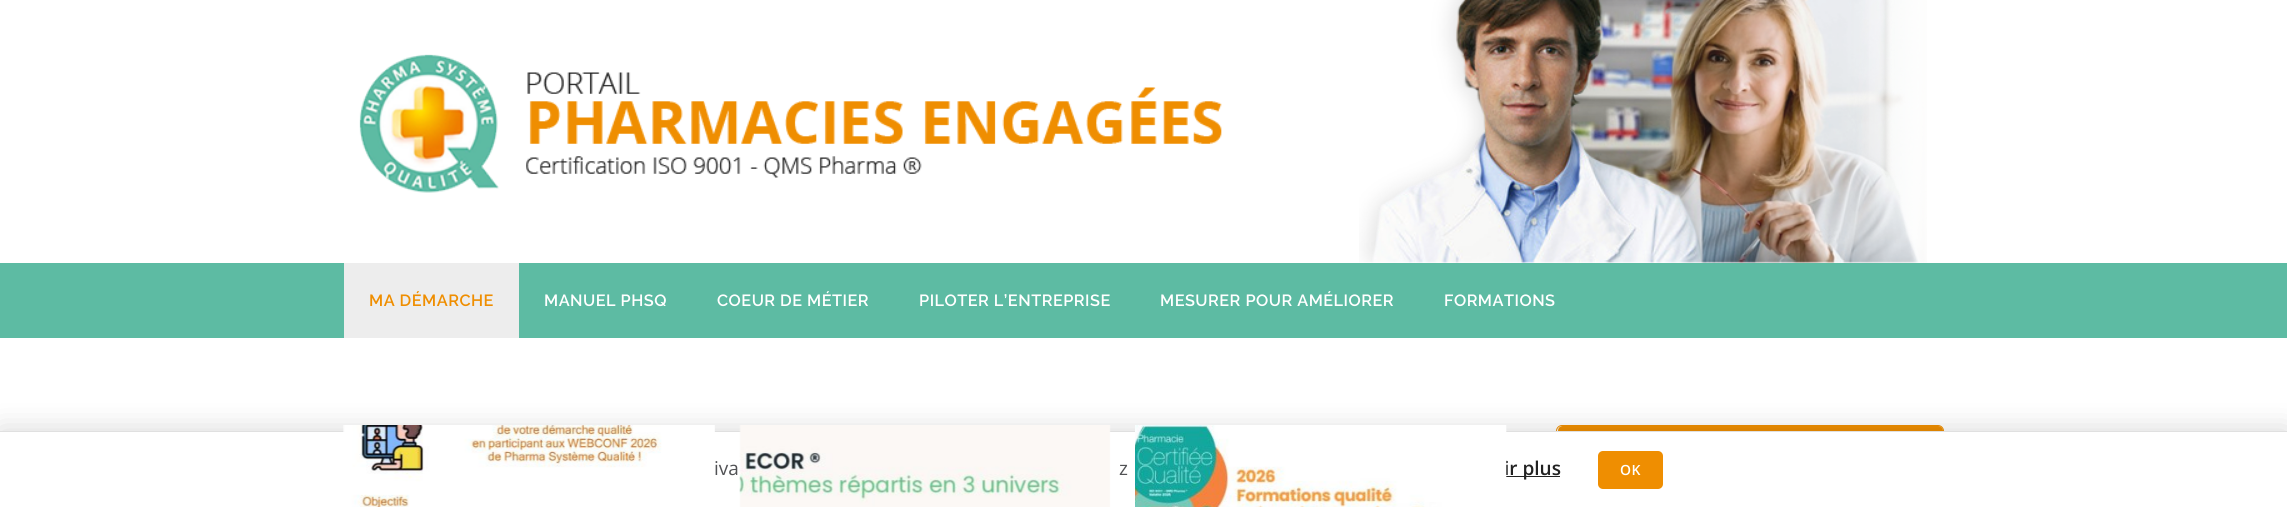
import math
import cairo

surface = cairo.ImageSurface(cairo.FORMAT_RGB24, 2287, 507)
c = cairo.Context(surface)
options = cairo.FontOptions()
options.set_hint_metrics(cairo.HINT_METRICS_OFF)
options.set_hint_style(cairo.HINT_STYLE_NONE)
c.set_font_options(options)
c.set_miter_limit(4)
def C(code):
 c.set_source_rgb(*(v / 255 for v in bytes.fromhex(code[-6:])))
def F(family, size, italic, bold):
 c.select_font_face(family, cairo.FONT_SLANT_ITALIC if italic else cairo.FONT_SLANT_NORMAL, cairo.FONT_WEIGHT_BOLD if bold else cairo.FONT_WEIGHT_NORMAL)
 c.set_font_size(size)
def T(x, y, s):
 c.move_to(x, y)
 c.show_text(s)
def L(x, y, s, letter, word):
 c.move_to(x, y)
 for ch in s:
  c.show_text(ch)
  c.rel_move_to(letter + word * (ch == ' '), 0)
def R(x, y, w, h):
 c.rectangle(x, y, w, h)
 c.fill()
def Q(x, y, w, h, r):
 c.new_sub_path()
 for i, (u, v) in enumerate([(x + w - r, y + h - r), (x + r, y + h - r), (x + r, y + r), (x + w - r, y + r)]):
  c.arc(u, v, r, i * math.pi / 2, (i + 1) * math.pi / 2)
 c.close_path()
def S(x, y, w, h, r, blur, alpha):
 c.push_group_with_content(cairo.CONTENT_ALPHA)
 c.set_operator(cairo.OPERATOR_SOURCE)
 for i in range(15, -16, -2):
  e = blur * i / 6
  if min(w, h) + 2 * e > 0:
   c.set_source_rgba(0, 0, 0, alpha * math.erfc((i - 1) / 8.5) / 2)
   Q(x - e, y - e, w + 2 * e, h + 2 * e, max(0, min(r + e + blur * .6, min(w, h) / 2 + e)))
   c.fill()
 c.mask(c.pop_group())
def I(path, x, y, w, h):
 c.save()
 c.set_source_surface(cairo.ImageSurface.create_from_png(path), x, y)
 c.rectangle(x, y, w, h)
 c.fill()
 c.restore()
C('ffffff')
c.paint()
I('1.png',1359,0,568,263)
I('2.png',359,54,863,139)
C('5dbba3')
R(0,263,2287,75)
C('ededed')
R(344,263,175,75)
F('Raleway SemiBold',16.25,0,0)
C('ef8e01')
L(369,306,'MA DÉMARCHE',.5,0)
C('ffffff')
L(544,306,'MANUEL PHSQ',.5,0)
L(717,306,'COEUR DE MÉTIER',.5,0)
L(919,306,'PILOTER L’ENTREPRISE',.5,0)
L(1160,306,'MESURER POUR AMÉLIORER',.5,0)
L(1444,306,'FORMATIONS',.5,0)
Q(1556.5,425.5,387,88,5.5)
C('ef8e01')
c.set_line_width(1)
c.stroke()
c.new_path()
c.move_to(1563,426)
c.line_to(1938,426)
c.curve_to(1941,426,1943,428,1943,431)
c.line_to(1943,470)
c.line_to(1558,470)
c.line_to(1558,431)
c.curve_to(1558,428,1560,426,1563,426)
c.close_path()
c.fill()
C('000000')
S(0,431,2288,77,0,15.5,.16)
C('ffffff')
R(0,432,2287,75)
C('e0e0e0')
R(0,431,2287,1)
I('3.png',343,425,372,82)
I('4.png',739,425,372,82)
C('222222')
R(1506,476,54,1)
F('Open Sans SemiBold',19,0,0)
T(1504,475,'ir plus')
I('5.png',1135,425,372,82)
F('Open Sans',19,0,0)
C('515255')
T(714,475,'iva')
T(1119,475,'z')
C('ef8e01')
Q(1598,451,65,38,5)
c.fill()
F('Open Sans SemiBold',14,0,0)
C('ffffff')
L(1620,475,'OK',.5,0)
surface.write_to_png('o.png')
